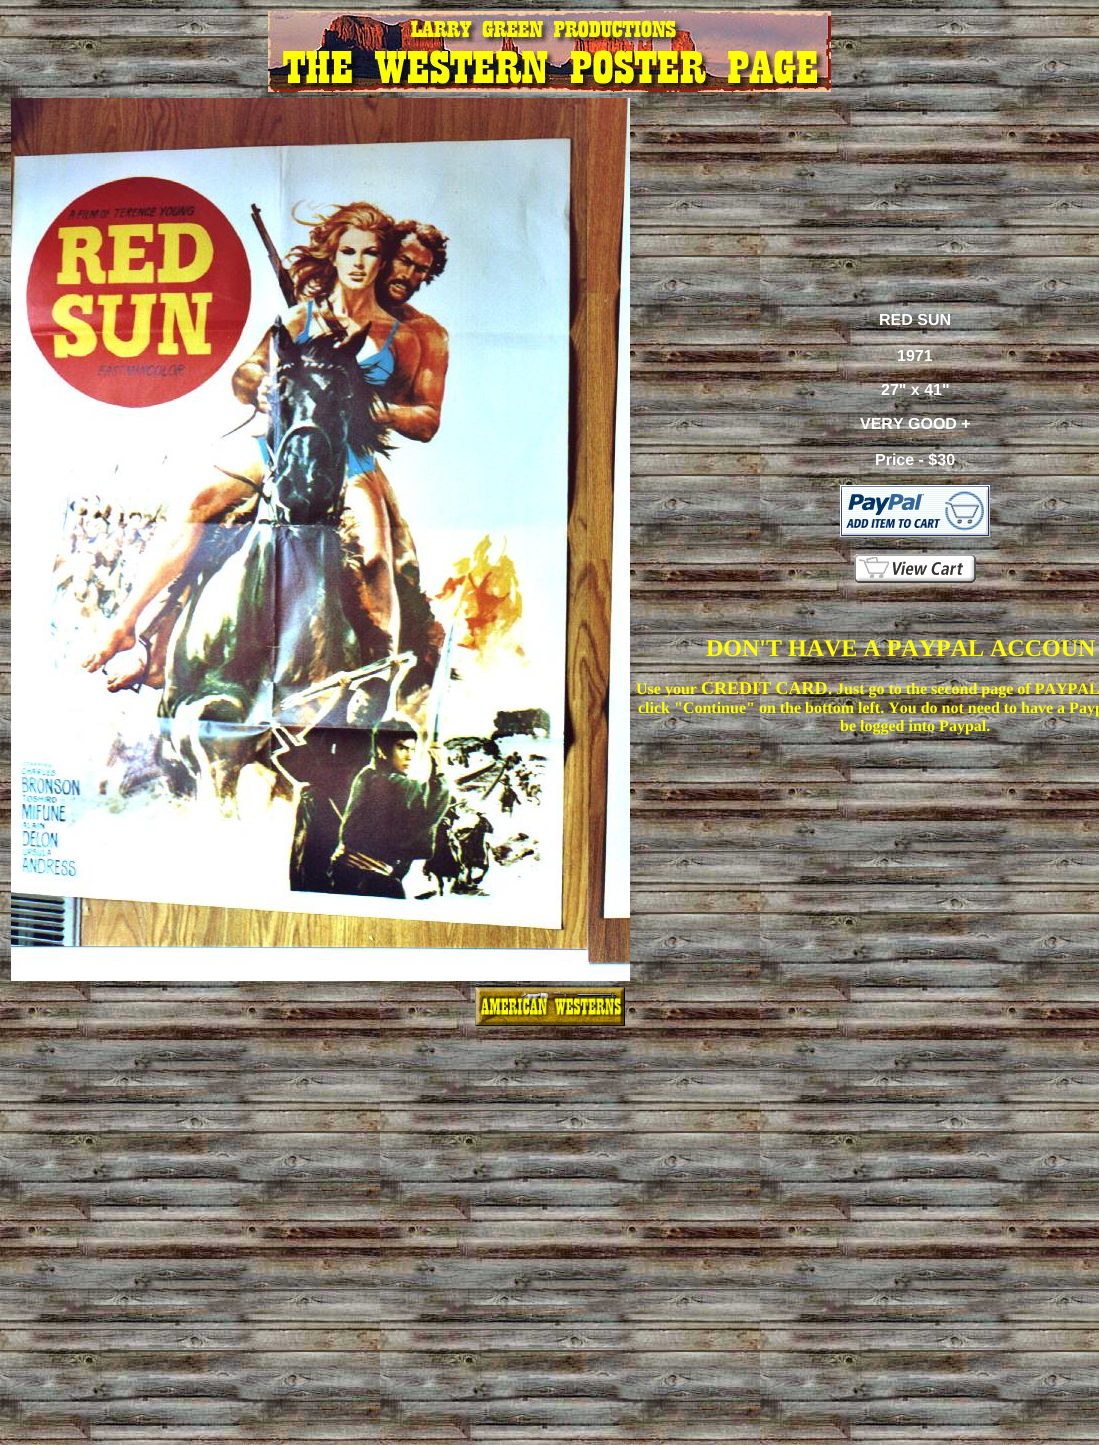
import math
import cairo

surface = cairo.ImageSurface(cairo.FORMAT_RGB24, 1099, 1445)
c = cairo.Context(surface)
options = cairo.FontOptions()
options.set_hint_metrics(cairo.HINT_METRICS_OFF)
options.set_hint_style(cairo.HINT_STYLE_NONE)
c.set_font_options(options)
c.set_miter_limit(4)
def C(code):
 c.set_source_rgb(*(v / 255 for v in bytes.fromhex(code[-6:])))
def F(family, size, italic, bold):
 c.select_font_face(family, cairo.FONT_SLANT_ITALIC if italic else cairo.FONT_SLANT_NORMAL, cairo.FONT_WEIGHT_BOLD if bold else cairo.FONT_WEIGHT_NORMAL)
 c.set_font_size(size)
def T(x, y, s):
 c.move_to(x, y)
 c.show_text(s)
def I(path, x, y, w, h):
 c.save()
 c.set_source_surface(cairo.ImageSurface.create_from_png(path), x, y)
 c.rectangle(x, y, w, h)
 c.fill()
 c.restore()
C('ffffff')
c.paint()
I('1.png',0,0,1099,1445)
I('2.png',268,11,563,81)
I('3.png',11,98,619,883)
F('Liberation Sans',16,0,1)
C('ffffff')
T(879,325,'RED SUN')
T(897,361,'1971')
T(881,395,'27" x 41"')
T(860,429,'VERY GOOD +')
T(875,465,'Price - $30')
I('4.png',840,485,150,52)
I('5.png',854,554,122,29)
F('Liberation Serif',24,0,1)
C('ffff00')
T(706,656,'DON\'T HAVE A PAYPAL ACCOUN')
F('Liberation Serif',16,0,1)
T(636,694,'Use your')
F('Liberation Serif',18,0,1)
T(701,694,'CREDIT CARD')
F('Liberation Serif',16,0,1)
T(828,694,'. Just go to the second page of PAYPAL')
T(638,713,'click "Continue" on the bottom left. You do not need to have a Payp')
T(840,731,'be logged into Paypal.')
I('6.png',475,987,150,39)
surface.write_to_png('o.png')
